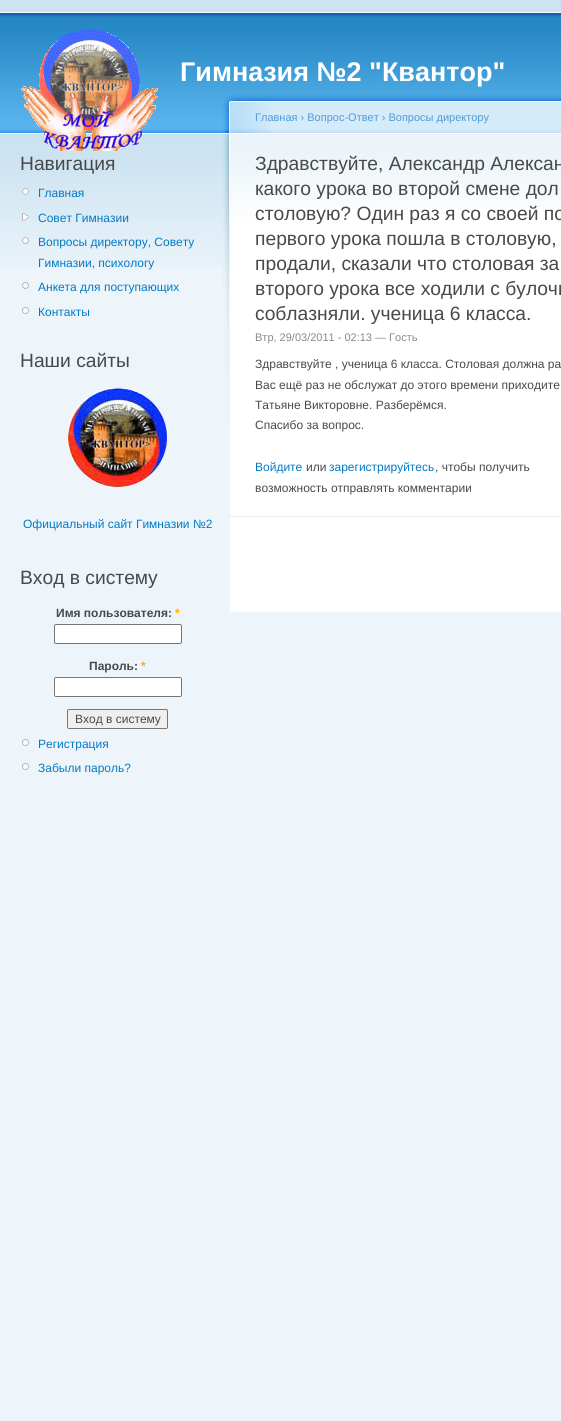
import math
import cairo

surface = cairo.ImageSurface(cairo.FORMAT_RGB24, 561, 1421)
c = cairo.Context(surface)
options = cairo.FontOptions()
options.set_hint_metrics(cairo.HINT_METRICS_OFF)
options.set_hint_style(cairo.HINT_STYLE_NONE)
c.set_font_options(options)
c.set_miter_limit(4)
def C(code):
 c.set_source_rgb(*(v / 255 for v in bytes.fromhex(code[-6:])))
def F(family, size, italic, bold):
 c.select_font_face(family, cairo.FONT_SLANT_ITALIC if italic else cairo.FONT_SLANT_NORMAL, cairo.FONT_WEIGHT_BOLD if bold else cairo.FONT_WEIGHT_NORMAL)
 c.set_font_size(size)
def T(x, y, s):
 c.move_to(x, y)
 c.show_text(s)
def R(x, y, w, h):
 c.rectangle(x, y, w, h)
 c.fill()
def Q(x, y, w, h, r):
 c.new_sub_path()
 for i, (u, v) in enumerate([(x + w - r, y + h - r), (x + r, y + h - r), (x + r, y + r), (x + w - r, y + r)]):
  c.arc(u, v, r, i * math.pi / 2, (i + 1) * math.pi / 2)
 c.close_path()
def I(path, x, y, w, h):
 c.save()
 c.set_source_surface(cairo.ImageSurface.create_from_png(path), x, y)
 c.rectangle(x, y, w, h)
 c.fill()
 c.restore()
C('edf5fa')
c.paint()
C('cde3f1')
R(0,0,561,12)
I('1.png',0,12,561,255)
I('2.png',21,29,137,122)
F('Liberation Sans',27,0,1)
C('ffffff')
T(180,81,'Гимназия №2 "Квантор"')
F('Liberation Sans',19.25,0,0)
C('494949')
T(20,170,'Навигация')
I('3.png',22,188,7,7)
F('Liberation Sans',12,0,0)
C('027ac6')
T(38,197,'Главная')
I('4.png',22,212,8,10)
T(38,222,'Совет Гимназии')
I('5.png',22,237,7,7)
T(38,246,'Вопросы директору, Совету')
T(38,267,'Гимназии, психологу')
I('6.png',22,282,7,7)
T(38,291,'Анкета для поступающих')
I('6.png',22,307,7,7)
T(38,316,'Контакты')
F('Liberation Sans',19.25,0,0)
C('494949')
T(20,367,'Наши сайты')
I('7.png',68,388,99,99)
F('Liberation Sans',12,0,0)
C('027ac6')
T(23,528,'Официальный сайт Гимназии №2')
F('Liberation Sans',19.25,0,0)
C('494949')
T(20,584,'Вход в систему')
F('Liberation Sans',12,0,1)
T(56,617,'Имя пользователя:')
C('ffae00')
T(175,617,'*')
C('ffffff')
Q(54.5,624.5,127,19,1.5)
c.fill_preserve()
C('767676')
c.set_line_width(1)
c.stroke()
C('494949')
T(89,670,'Пароль:')
C('ffae00')
T(141,670,'*')
C('ffffff')
Q(54.5,677.5,127,19,1.5)
c.fill_preserve()
C('767676')
c.stroke()
C('efefef')
Q(67.5,709.5,100,19,1.5)
c.fill_preserve()
C('767676')
c.stroke()
F('Liberation Sans',12,0,0)
C('494949')
T(75,723,'Вход в систему')
I('6.png',22,739,7,7)
C('027ac6')
T(38,748,'Регистрация')
I('6.png',22,763,7,7)
T(38,772,'Забыли пароль?')
C('ffffff')
R(230,209,331,403)
I('8.png',230,92,331,117)
I('9.png',222,96,48,326)
F('Liberation Sans',11,0,0)
C('529ad6')
T(255,121,'Главная › Вопрос-Ответ › Вопросы директору')
F('Liberation Sans',19.25,0,0)
C('494949')
T(255,170,'Здравствуйте, Александр Алексан')
T(255,195,'какого урока во второй смене дол')
T(255,220,'столовую? Один раз я со своей по')
T(255,245,'первого урока пошла в столовую,')
T(255,270,'продали, сказали что столовая за')
T(255,295,'второго урока все ходили с булочк')
T(255,320,'соблазняли. ученица 6 класса.')
C('e9eff3')
R(229,516,332,1)
F('Liberation Sans',11,0,0)
C('898989')
T(255,341,'Втр, 29/03/2011 - 02:13 — Гость')
F('Liberation Sans',12,0,0)
C('494949')
T(255,368,'Здравствуйте , ученица 6 класса. Столовая должна ра')
T(255,389,'Вас ещё раз не обслужат до этого времени приходите')
T(255,409,'Татьяне Викторовне. Разберёмся.')
T(255,429,'Спасибо за вопрос.')
C('027ac6')
T(255,471,'Войдите')
C('494949')
T(306,471,'или')
C('027ac6')
T(329,471,'зарегистрируйтесь')
C('494949')
T(435,471,', чтобы получить')
T(255,492,'возможность отправлять комментарии')
surface.write_to_png('o.png')
